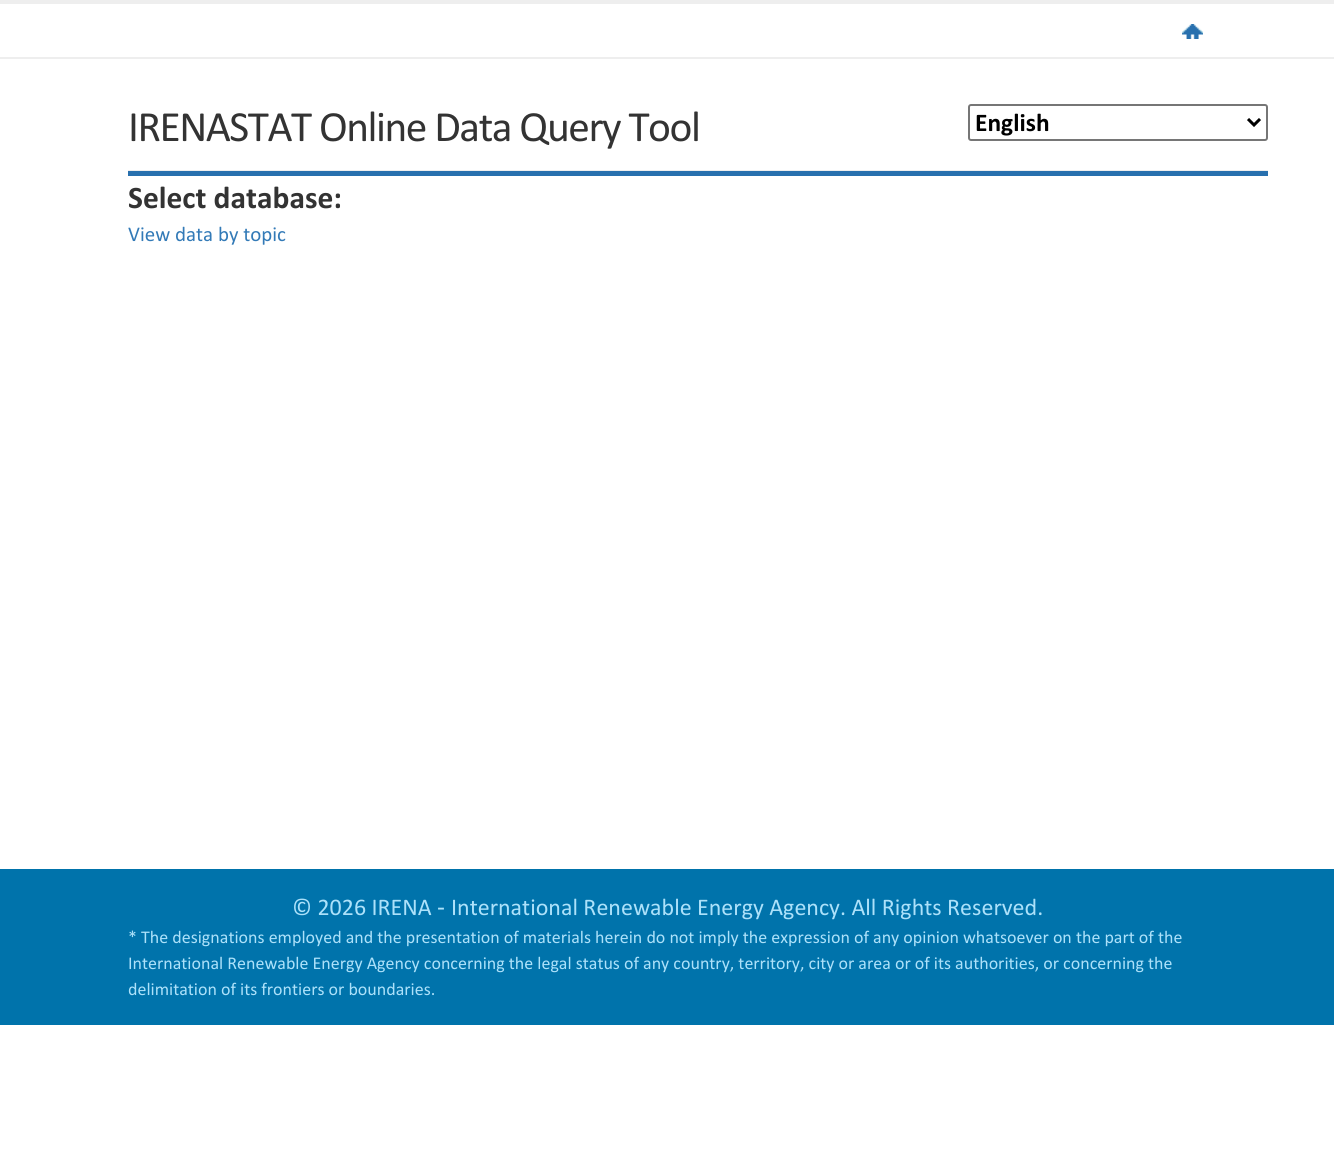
import math
import cairo

surface = cairo.ImageSurface(cairo.FORMAT_RGB24, 1334, 1155)
c = cairo.Context(surface)
options = cairo.FontOptions()
options.set_hint_metrics(cairo.HINT_METRICS_OFF)
options.set_hint_style(cairo.HINT_STYLE_NONE)
c.set_font_options(options)
c.set_miter_limit(4)
def C(code):
 c.set_source_rgb(*(v / 255 for v in bytes.fromhex(code[-6:])))
def F(family, size, italic, bold):
 c.select_font_face(family, cairo.FONT_SLANT_ITALIC if italic else cairo.FONT_SLANT_NORMAL, cairo.FONT_WEIGHT_BOLD if bold else cairo.FONT_WEIGHT_NORMAL)
 c.set_font_size(size)
def T(x, y, s):
 c.move_to(x, y)
 c.show_text(s)
def L(x, y, s, letter, word):
 c.move_to(x, y)
 for ch in s:
  c.show_text(ch)
  c.rel_move_to(letter + word * (ch == ' '), 0)
def R(x, y, w, h):
 c.rectangle(x, y, w, h)
 c.fill()
def Q(x, y, w, h, r):
 c.new_sub_path()
 for i, (u, v) in enumerate([(x + w - r, y + h - r), (x + r, y + h - r), (x + r, y + r), (x + w - r, y + r)]):
  c.arc(u, v, r, i * math.pi / 2, (i + 1) * math.pi / 2)
 c.close_path()
def I(path, x, y, w, h):
 c.save()
 c.set_source_surface(cairo.ImageSurface.create_from_png(path), x, y)
 c.rectangle(x, y, w, h)
 c.fill()
 c.restore()
C('ffffff')
c.paint()
C('eeeeee')
R(0,0,1334,4)
R(0,57,1334,2)
I('1.png',1182,24,21,15)
R(128,170,1140,1)
F('Calibri',43.4,0,0)
C('333333')
L(128,141,'IRENASTAT Online Data Query Tool',-1.5,0)
Q(969,105,298,35,2)
C('767676')
c.stroke()
c.new_path()
c.move_to(1248,119)
c.line_to(1254,125)
c.line_to(1260,119)
C('000000')
c.set_line_width(3)
c.stroke()
F('Calibri',25.5,0,1)
T(975,131,'English')
C('2870ae')
R(128,171,1140,5)
F('Calibri',31.5,0,1)
C('333333')
T(128,208,'Select database:')
F('Calibri',21,0,0)
C('337ab7')
T(128,241,'View data by topic')
C('0073ab')
R(0,869,1334,156)
F('Calibri',24,0,0)
C('ace1fa')
T(292,915,'© 2026 IRENA')
F('Liberation Sans',24,0,0)
T(437,915,'-')
F('Calibri',24,0,0)
T(451,915,'International Renewable Energy Agency. All Rights Reserved.')
F('Calibri',18,0,0)
T(128,943,'* The designations employed and the presentation of materials herein do not imply the expression of any opinion whatsoever on the part of the')
T(128,969,'International Renewable Energy Agency concerning the legal status of any country, territory, city or area or of its authorities, or concerning the')
T(128,995,'delimitation of its frontiers or boundaries.')
surface.write_to_png('o.png')
